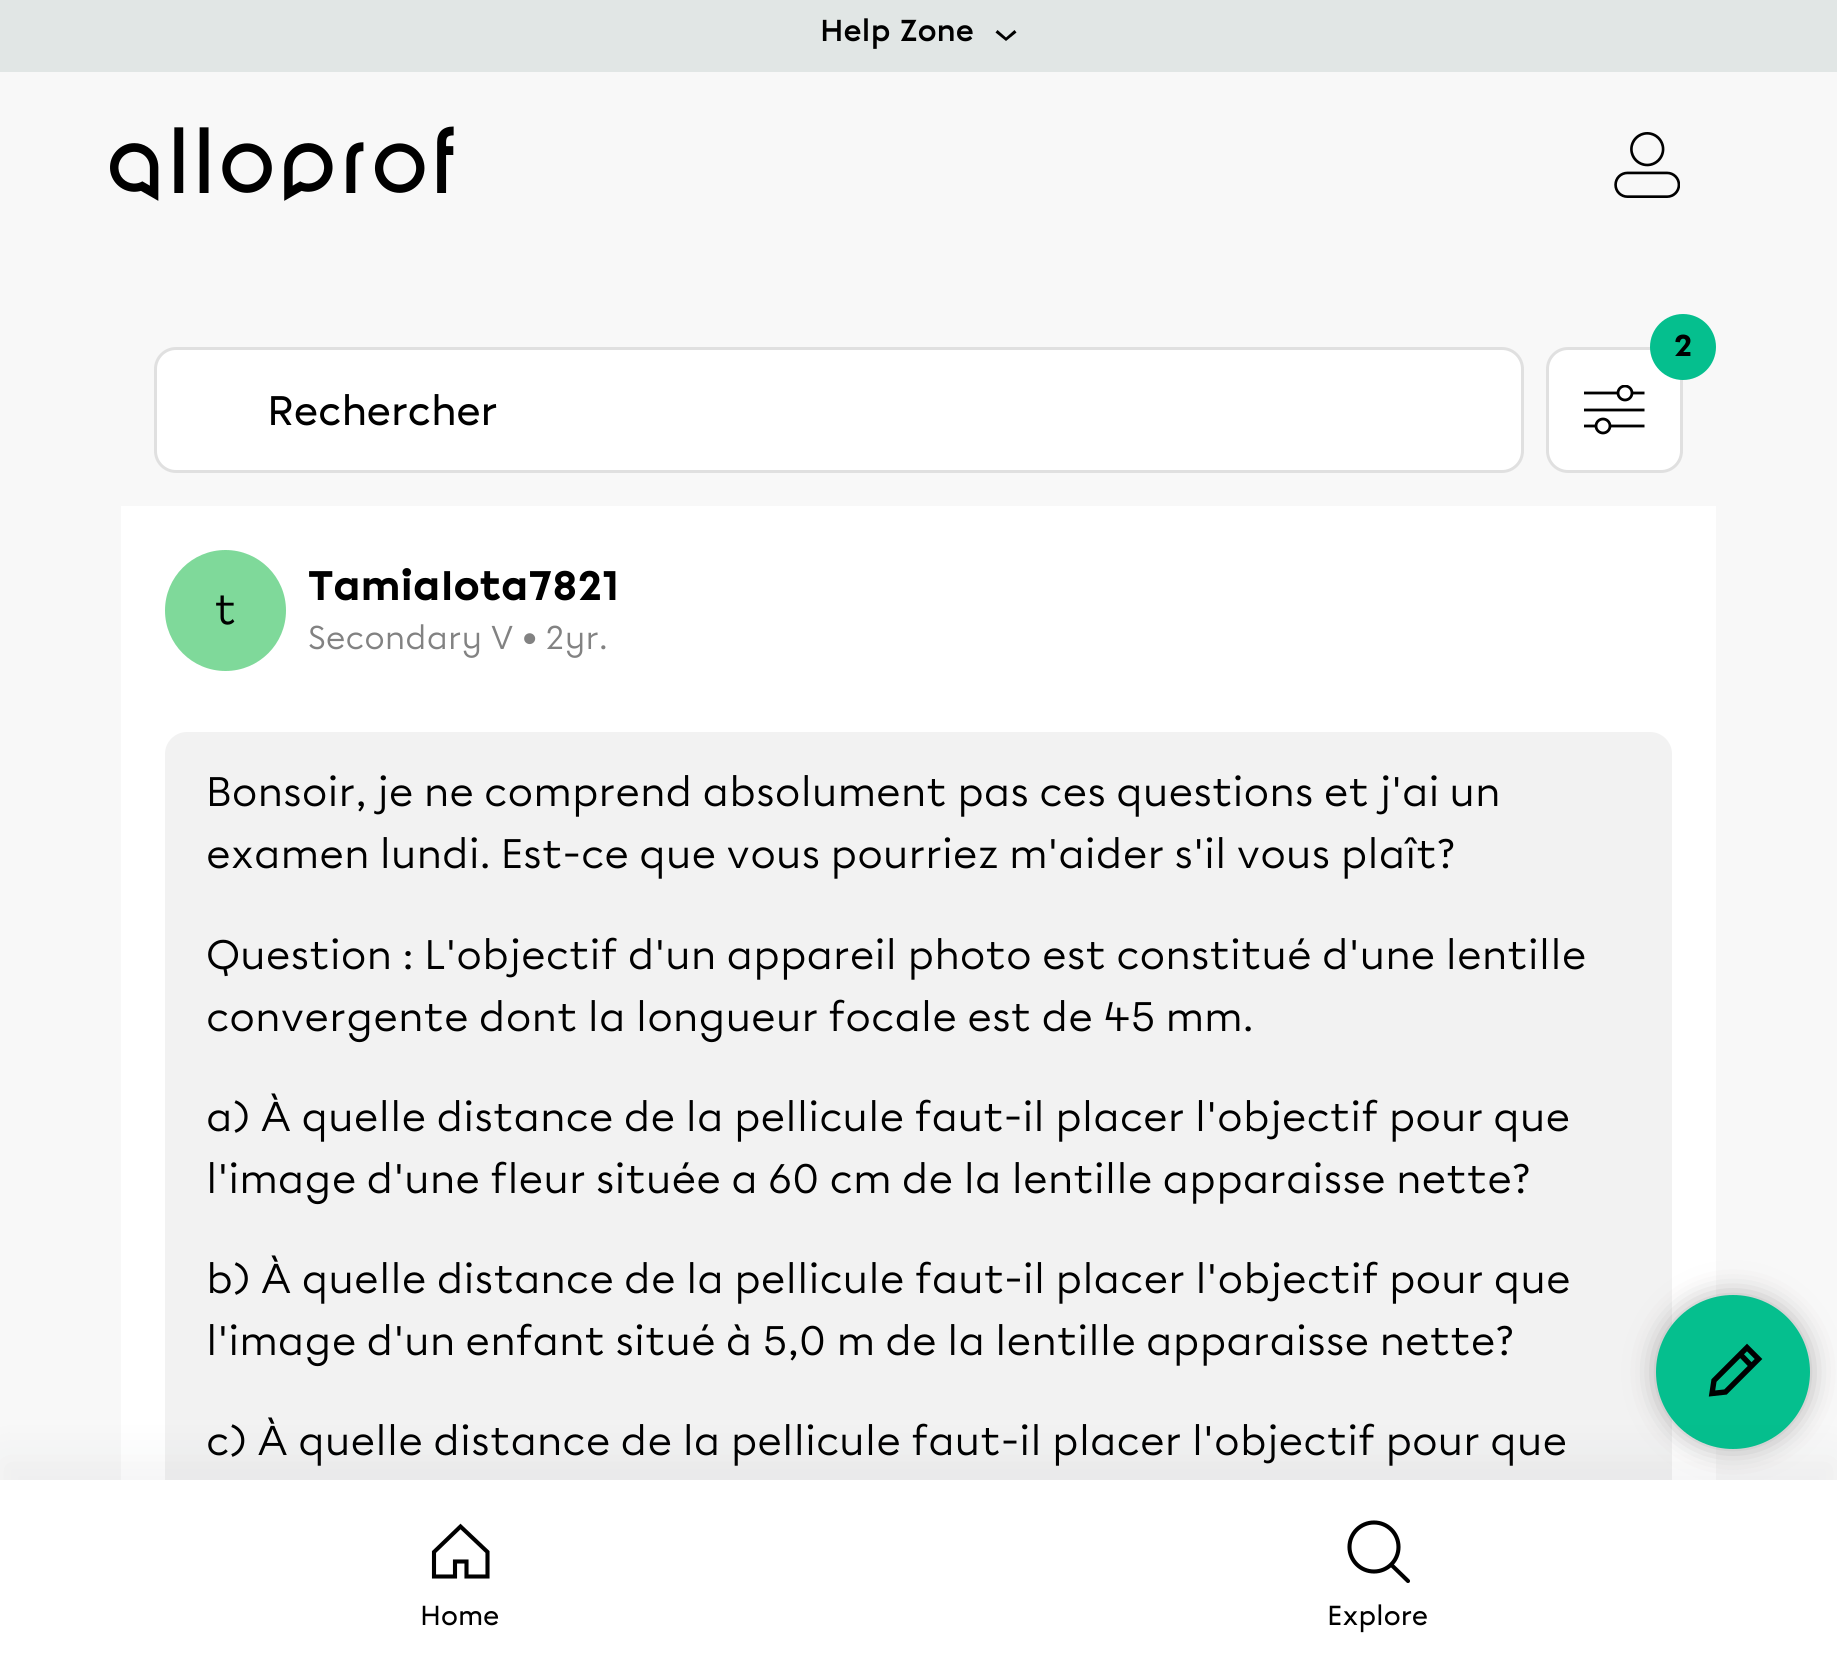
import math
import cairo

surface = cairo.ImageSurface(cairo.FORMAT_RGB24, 1837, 1653)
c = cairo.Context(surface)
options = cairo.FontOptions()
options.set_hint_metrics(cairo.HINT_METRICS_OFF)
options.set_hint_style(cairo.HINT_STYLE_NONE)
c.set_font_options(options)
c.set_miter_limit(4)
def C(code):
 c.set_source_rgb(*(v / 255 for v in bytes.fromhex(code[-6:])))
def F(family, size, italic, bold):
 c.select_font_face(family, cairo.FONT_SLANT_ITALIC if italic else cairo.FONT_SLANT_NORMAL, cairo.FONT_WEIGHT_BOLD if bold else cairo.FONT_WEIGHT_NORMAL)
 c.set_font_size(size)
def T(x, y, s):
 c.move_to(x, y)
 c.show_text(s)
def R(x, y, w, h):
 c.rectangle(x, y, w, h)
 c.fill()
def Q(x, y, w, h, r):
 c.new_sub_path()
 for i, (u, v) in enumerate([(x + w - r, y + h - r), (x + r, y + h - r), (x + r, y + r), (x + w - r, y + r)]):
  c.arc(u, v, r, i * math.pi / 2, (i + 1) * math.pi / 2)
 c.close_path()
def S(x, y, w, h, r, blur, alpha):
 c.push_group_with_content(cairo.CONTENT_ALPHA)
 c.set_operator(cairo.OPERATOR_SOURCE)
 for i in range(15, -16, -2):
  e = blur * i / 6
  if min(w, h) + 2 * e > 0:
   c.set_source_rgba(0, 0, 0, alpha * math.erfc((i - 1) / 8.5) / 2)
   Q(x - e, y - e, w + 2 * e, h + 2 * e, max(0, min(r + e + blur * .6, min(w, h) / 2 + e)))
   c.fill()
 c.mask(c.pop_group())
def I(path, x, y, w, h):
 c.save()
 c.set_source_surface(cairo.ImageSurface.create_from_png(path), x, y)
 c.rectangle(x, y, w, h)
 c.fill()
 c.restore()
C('f8f8f8')
c.paint()
C('e1e6e5')
R(0,0,1837,72)
F('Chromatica',30.25,0,1)
C('000000')
T(820,41,'Help Zone')
c.new_path()
c.move_to(1006,37.5)
c.line_to(997.5,30)
c.line_to(995.5,32.5)
c.line_to(1006,41)
c.line_to(1016.5,32.5)
c.line_to(1014.5,30)
c.close_path()
c.fill()
I('1.png',110,126,344,75)
I('2.png',1614,132,66,66)
C('ffffff')
Q(1547.5,348.5,134,123,20.5)
c.fill_preserve()
C('e0e0e0')
c.set_line_width(3)
c.stroke()
C('05bf8e')
c.arc(1683,347,33,0,2 * math.pi)
c.fill()
F('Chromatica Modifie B',30.25,0,1)
C('000000')
T(1674,356,'2')
c.new_path()
c.move_to(1584,393)
c.line_to(1644.5,393)
c.move_to(1584,410)
c.line_to(1644.5,410)
c.move_to(1584,426)
c.line_to(1644.5,426)
c.set_line_width(2.8)
c.stroke()
C('ffffff')
c.arc(1625,393,7,0,2 * math.pi)
c.fill()
c.save()
c.rectangle(1584,385,61,50)
c.clip()
c.arc(1625,393,7,0,2 * math.pi)
C('000000')
c.stroke()
c.restore()
c.arc(1603,426,7,0,2 * math.pi)
c.fill_preserve()
C('000000')
c.stroke()
C('ffffff')
Q(155.5,348.5,1367,123,20.5)
c.fill_preserve()
C('e0e0e0')
c.set_line_width(3)
c.stroke()
F('Chromatica Medium',41.25,0,0)
C('000000')
T(267,425,'Rechercher')
C('ffffff')
R(121,506,1595,974)
C('7fd99a')
c.new_path()
c.arc(225.5,610.5,60.5,0,2 * math.pi)
c.fill()
I('3.png',216,595,19,30)
F('Chromatica Black',41.25,0,0)
C('000000')
T(308,600,'TamiaIota7821')
F('Chromatica Modifie B',33,0,0)
C('828282')
T(308,649,'Secondary V • 2yr.')
C('f2f2f2')
Q(165,732,1507,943,22)
c.fill()
F('Chromatica Modifie B',41.25,0,0)
C('000000')
T(206,806,'Bonsoir, je ne comprend absolument pas ces questions et j\'ai un')
T(206,868,'examen lundi. Est-ce que vous pourriez m\'aider s\'il vous plaît?')
T(206,969,'Question : L\'objectif d\'un appareil photo est constitué d\'une lentille')
T(206,1031,'convergente dont la longueur focale est de 45 mm.')
T(206,1131,'a) À quelle distance de la pellicule faut-il placer l\'objectif pour que')
T(206,1193,'l\'image d\'une fleur située a 60 cm de la lentille apparaisse nette?')
T(206,1293,'b) À quelle distance de la pellicule faut-il placer l\'objectif pour que')
T(206,1355,'l\'image d\'un enfant situé à 5,0 m de la lentille apparaisse nette?')
T(206,1455,'c) À quelle distance de la pellicule faut-il placer l\'objectif pour que')
C('6c6767')
S(1656,1295,154,154,77,14,.5)
C('05bf8e')
c.arc(1733,1372,77,0,2 * math.pi)
c.fill()
c.new_path()
c.move_to(1758.5,1359)
c.line_to(1725.5,1392)
c.line_to(1712,1393.5)
c.line_to(1714,1380.5)
c.line_to(1747,1347.5)
c.close_path()
c.move_to(1752,1366.5)
c.line_to(1739.5,1353.5)
C('000000')
c.set_line_width(5.4)
c.stroke()
C('1a202c')
S(0,1458,1837,176,0,22,.05)
C('ffffff')
R(0,1480,1837,173)
c.new_path()
c.move_to(487.5,1552)
c.line_to(487.5,1576.5)
c.line_to(466.5,1576.5)
c.line_to(466.5,1561.5)
c.line_to(455,1561.5)
c.line_to(455,1576.5)
c.line_to(434,1576.5)
c.line_to(434,1552)
c.line_to(460.5,1526.5)
c.close_path()
C('000000')
c.set_line_width(4.1)
c.stroke()
F('Chromatica Medium',27.5,0,0)
T(420,1625,'Home')
c.new_path()
c.arc(1374,1547,24.5,0,2 * math.pi)
c.stroke()
c.new_path()
c.move_to(1391.5,1565)
c.line_to(1408,1581)
c.set_line_cap(cairo.LINE_CAP_ROUND)
c.stroke()
T(1327,1625,'Explore')
surface.write_to_png('o.png')
